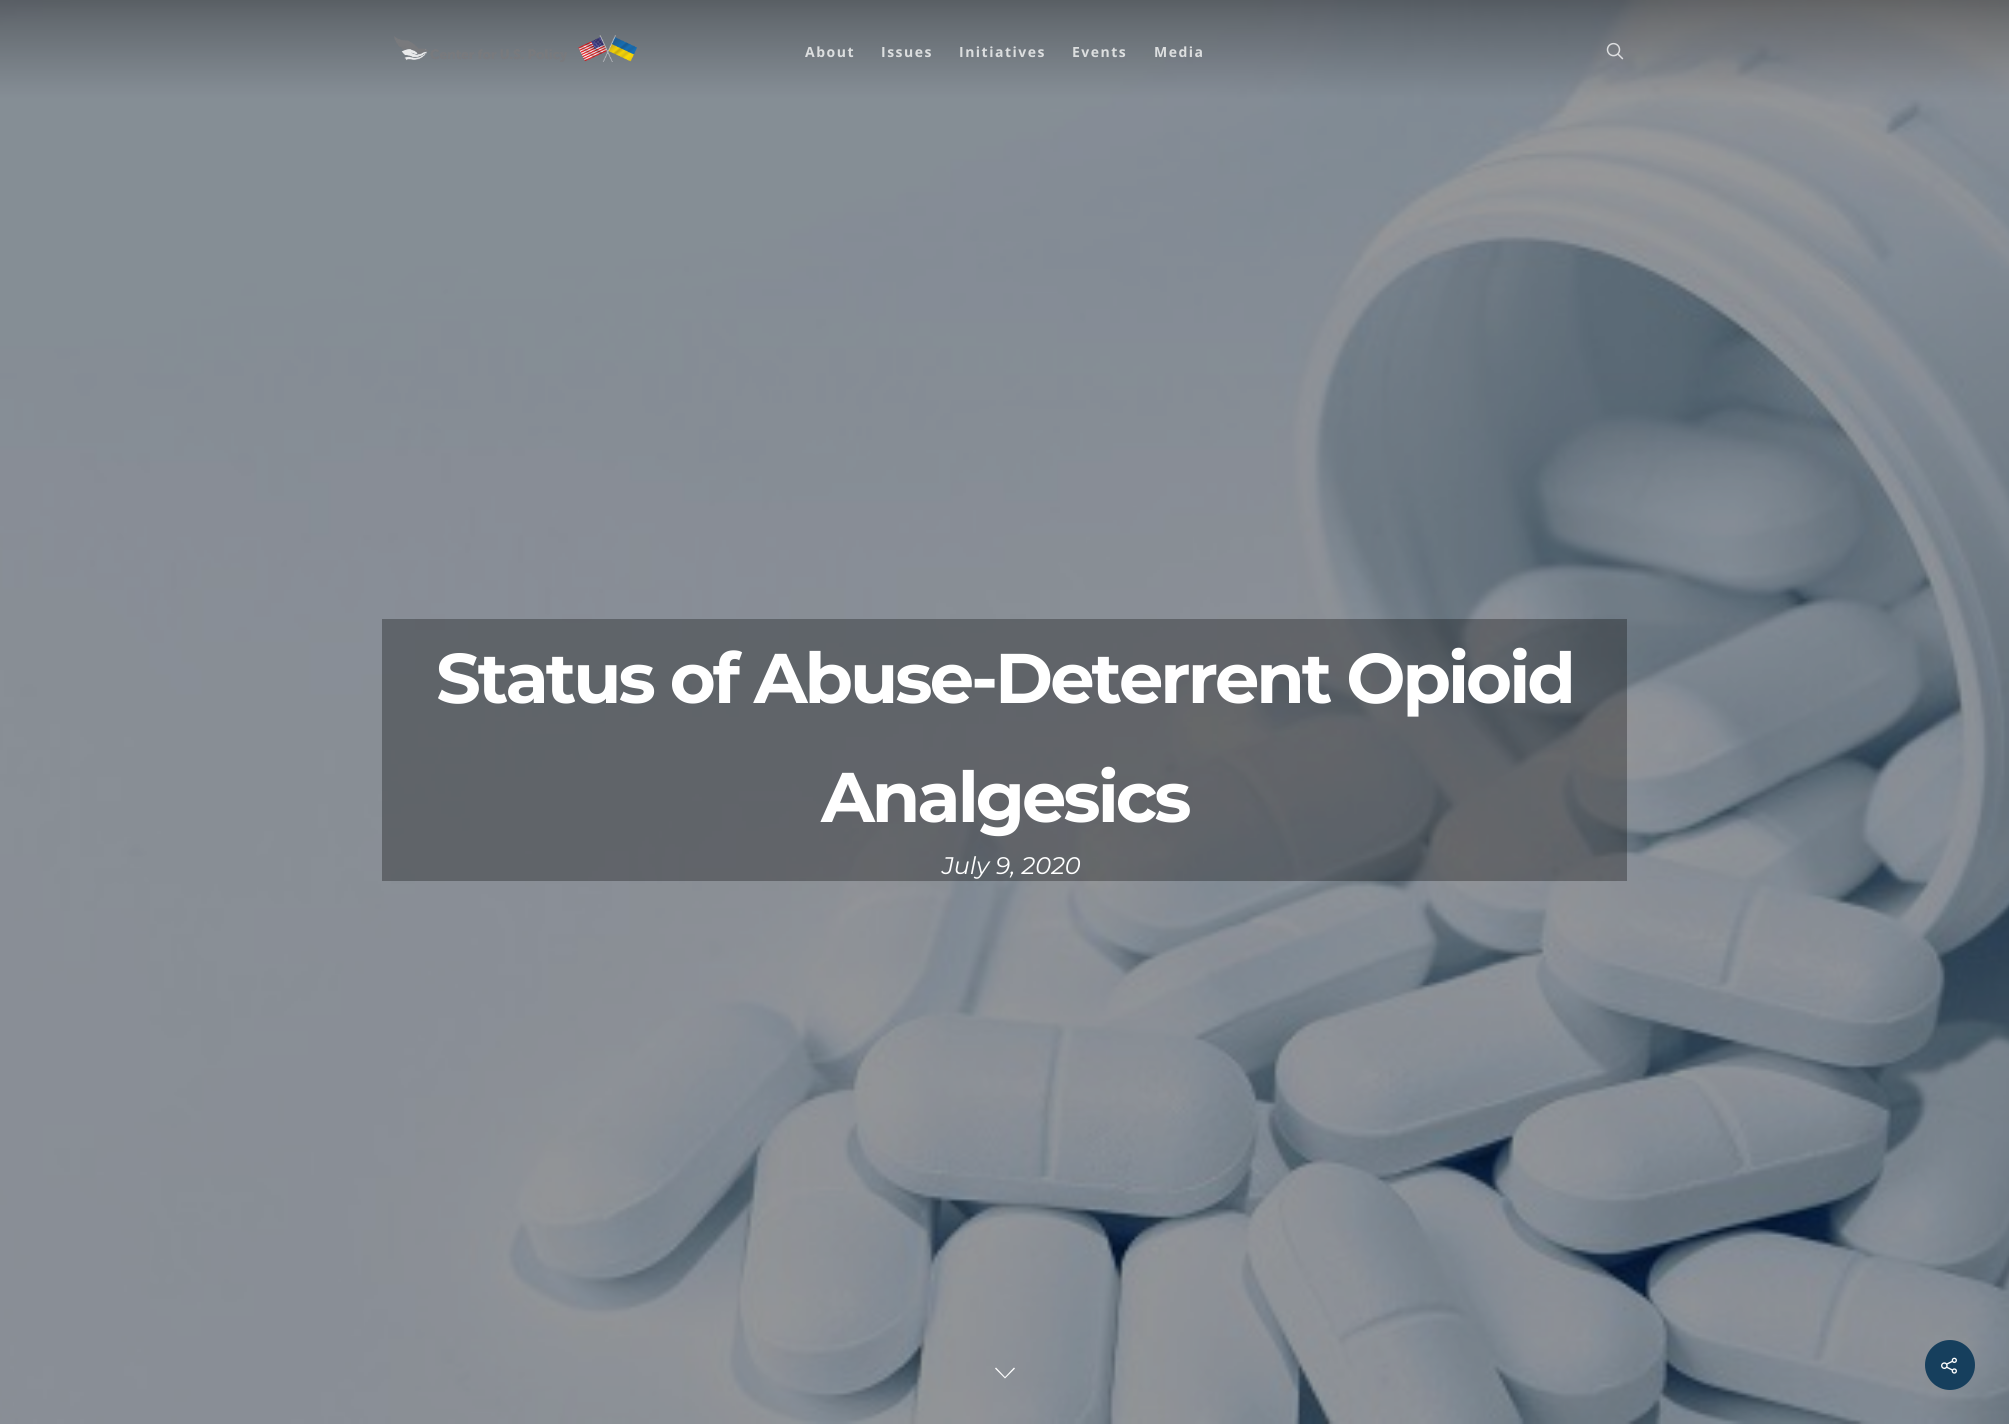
import math
import cairo

surface = cairo.ImageSurface(cairo.FORMAT_RGB24, 2009, 1424)
c = cairo.Context(surface)
options = cairo.FontOptions()
options.set_hint_metrics(cairo.HINT_METRICS_OFF)
options.set_hint_style(cairo.HINT_STYLE_NONE)
c.set_font_options(options)
c.set_miter_limit(4)
def C(code):
 c.set_source_rgb(*(v / 255 for v in bytes.fromhex(code[-6:])))
def F(family, size, italic, bold):
 c.select_font_face(family, cairo.FONT_SLANT_ITALIC if italic else cairo.FONT_SLANT_NORMAL, cairo.FONT_WEIGHT_BOLD if bold else cairo.FONT_WEIGHT_NORMAL)
 c.set_font_size(size)
def T(x, y, s):
 c.move_to(x, y)
 c.show_text(s)
def L(x, y, s, letter, word):
 c.move_to(x, y)
 for ch in s:
  c.show_text(ch)
  c.rel_move_to(letter + word * (ch == ' '), 0)
def R(x, y, w, h):
 c.rectangle(x, y, w, h)
 c.fill()
def I(path, x, y, w, h):
 c.save()
 c.set_source_surface(cairo.ImageSurface.create_from_png(path), x, y)
 c.rectangle(x, y, w, h)
 c.fill()
 c.restore()
C('ffffff')
c.paint()
I('3.png',0,0,2009,1424)
I('1.png',394,35,243,27)
F('Open Sans',14,0,1)
C('dcdedf')
L(805,57,'About',1.5,0)
L(881,57,'Issues',1.5,0)
L(959,57,'Initiatives',1.5,0)
L(1072,57,'Events',1.5,0)
L(1154,57,'Media',1.5,0)
I('2.png',1606,42,18,18)
c.set_source_rgba(0,0,0,0.3)
R(382,619,1245,237)
F('Montserrat',70.25,0,1)
C('ffffff')
L(436,703,'Status of Abuse-Deterrent Opioid',-3,0)
L(821,822,'Analgesics',-3,0)
c.set_source_rgba(0,0,0,0.3)
R(382,856,1245,25)
F('Montserrat Thin',24,1,0)
C('ffffff')
T(942,874,'July 9, 2020')
c.new_path()
c.move_to(1014,1367.5)
c.line_to(1015,1368.5)
c.line_to(1005,1378.5)
c.line_to(995,1368.5)
c.line_to(996,1367.5)
c.line_to(1005,1377)
c.close_path()
c.fill()
C('163f5d')
c.arc(1950,1365,25,0,2 * math.pi)
c.fill()
I('4.png',1941,1357,16,17)
surface.write_to_png('o.png')
